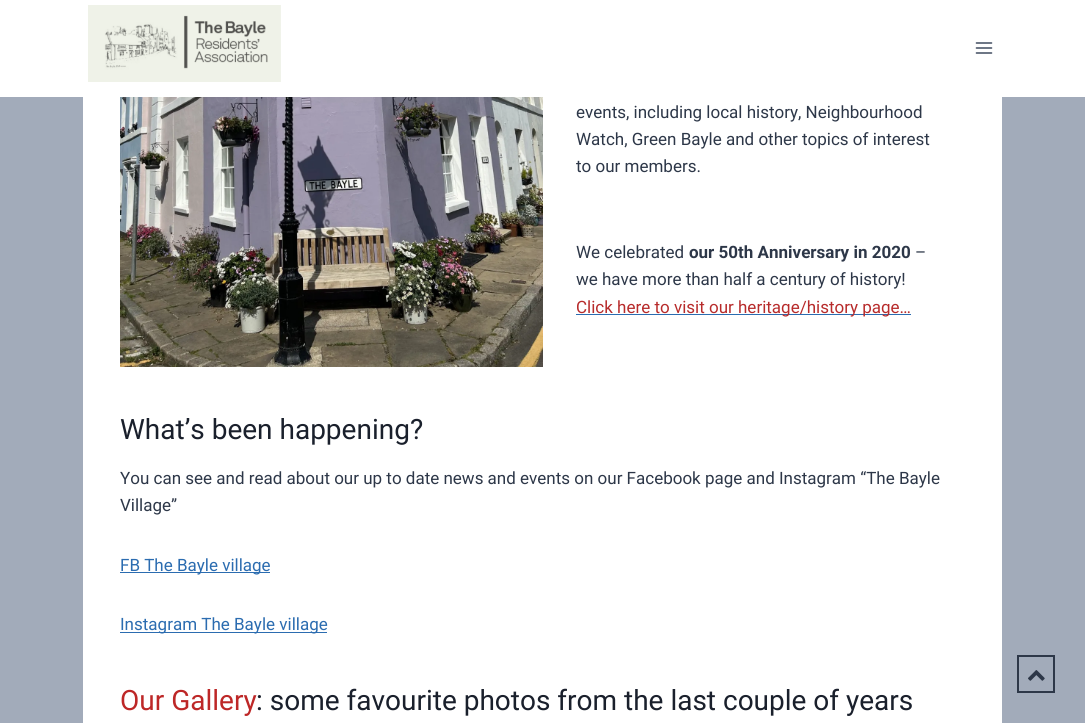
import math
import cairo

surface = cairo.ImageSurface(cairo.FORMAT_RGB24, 1085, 723)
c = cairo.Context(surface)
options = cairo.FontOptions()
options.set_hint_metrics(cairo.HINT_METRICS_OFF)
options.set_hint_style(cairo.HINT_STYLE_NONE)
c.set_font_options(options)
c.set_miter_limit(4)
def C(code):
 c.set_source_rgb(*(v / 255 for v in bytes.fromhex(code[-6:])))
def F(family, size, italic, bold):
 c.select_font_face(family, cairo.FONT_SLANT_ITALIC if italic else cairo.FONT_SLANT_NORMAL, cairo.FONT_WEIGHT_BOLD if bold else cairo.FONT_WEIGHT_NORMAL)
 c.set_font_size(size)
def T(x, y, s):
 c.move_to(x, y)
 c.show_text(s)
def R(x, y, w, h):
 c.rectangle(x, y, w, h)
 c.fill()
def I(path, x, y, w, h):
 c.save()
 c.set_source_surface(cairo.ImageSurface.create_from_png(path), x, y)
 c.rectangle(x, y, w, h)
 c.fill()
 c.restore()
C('a2abba')
c.paint()
C('ffffff')
R(0,0,1085,97)
I('1.png',88,5,193,77)
I('2.png',975,42,18,12)
R(83,97,919,626)
I('3.png',120,97,423,270)
F('Roboto',17,0,0)
C('2d3748')
T(576,118,'events, including local history, Neighbourhood')
T(576,145,'Watch, Green Bayle and other topics of interest')
T(576,172,'to our members.')
T(576,258,'We celebrated')
F('Roboto',17,0,1)
T(689,258,'our 50th Anniversary in 2020')
F('Roboto',17,0,0)
T(915,258,'–')
T(576,285,'we have more than half a century of history!')
C('2b6cb0')
R(576,314,335,1)
C('b72b2b')
T(576,313,'Click here to visit our heritage/history page…')
F('Roboto',28,0,0)
C('1a202c')
T(120,439,'What’s been happening?')
F('Roboto',17,0,0)
C('2d3748')
T(120,484,'You can see and read about our up to date news and events on our Facebook page and Instagram “The Bayle')
T(120,511,'Village”')
C('2b6cb0')
R(120,572,150,1)
T(120,571,'FB The Bayle village')
R(120,632,207,1)
T(120,630,'Instagram The Bayle village')
F('Roboto',28,0,0)
C('bd2727')
T(120,710,'Our Gallery')
C('1a202c')
T(256,710,': some favourite photos from the last couple of years')
c.rectangle(1018,656,36,36)
C('2d3748')
c.stroke()
I('4.png',1028,670,17,11)
surface.write_to_png('o.png')
